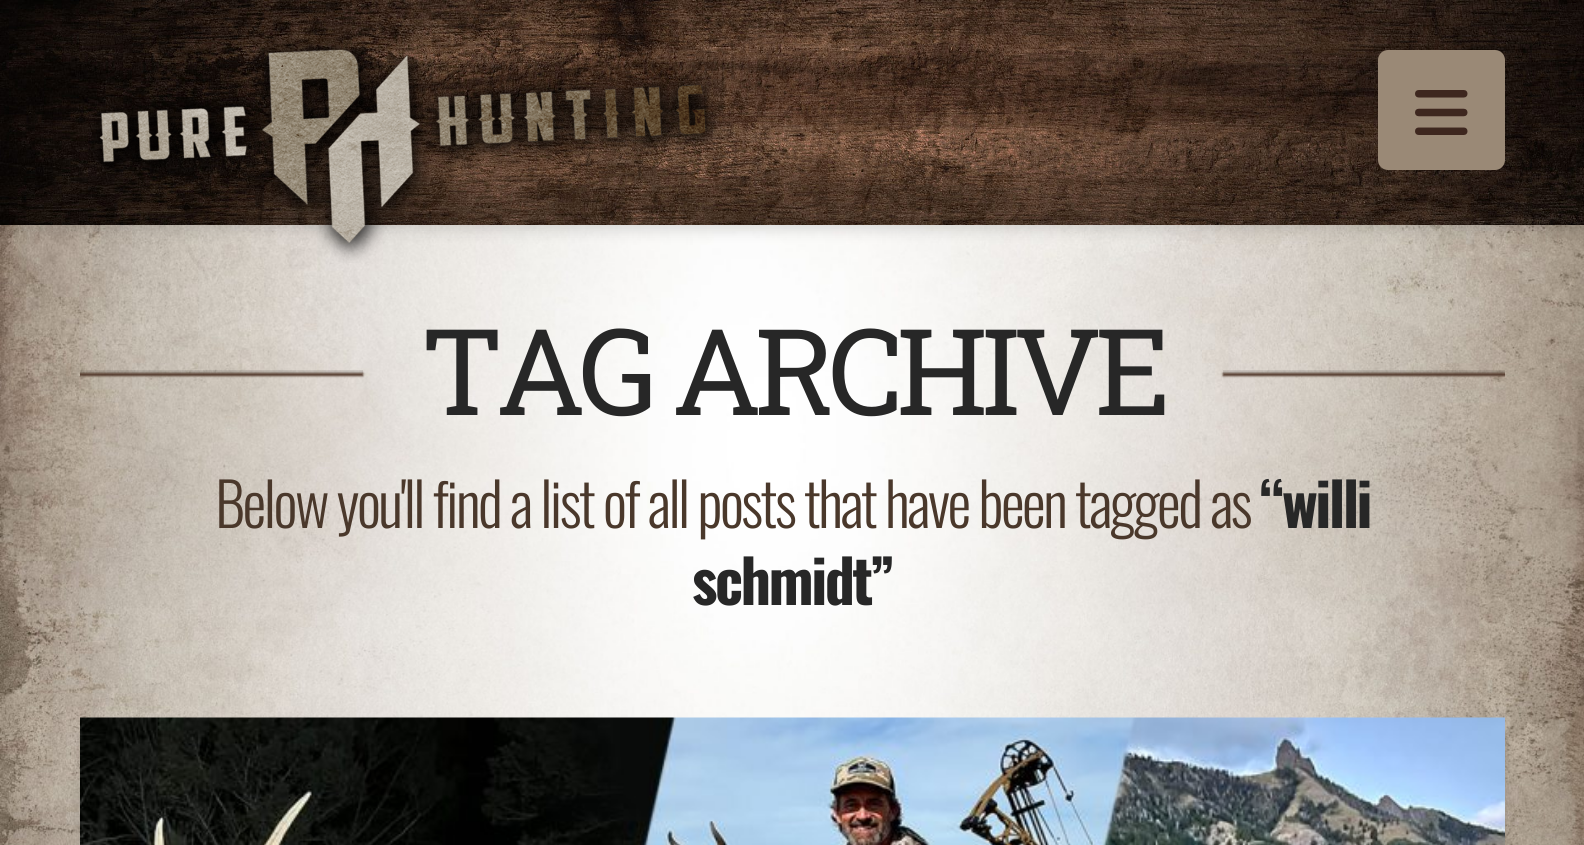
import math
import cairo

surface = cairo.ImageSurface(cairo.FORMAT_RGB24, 1584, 845)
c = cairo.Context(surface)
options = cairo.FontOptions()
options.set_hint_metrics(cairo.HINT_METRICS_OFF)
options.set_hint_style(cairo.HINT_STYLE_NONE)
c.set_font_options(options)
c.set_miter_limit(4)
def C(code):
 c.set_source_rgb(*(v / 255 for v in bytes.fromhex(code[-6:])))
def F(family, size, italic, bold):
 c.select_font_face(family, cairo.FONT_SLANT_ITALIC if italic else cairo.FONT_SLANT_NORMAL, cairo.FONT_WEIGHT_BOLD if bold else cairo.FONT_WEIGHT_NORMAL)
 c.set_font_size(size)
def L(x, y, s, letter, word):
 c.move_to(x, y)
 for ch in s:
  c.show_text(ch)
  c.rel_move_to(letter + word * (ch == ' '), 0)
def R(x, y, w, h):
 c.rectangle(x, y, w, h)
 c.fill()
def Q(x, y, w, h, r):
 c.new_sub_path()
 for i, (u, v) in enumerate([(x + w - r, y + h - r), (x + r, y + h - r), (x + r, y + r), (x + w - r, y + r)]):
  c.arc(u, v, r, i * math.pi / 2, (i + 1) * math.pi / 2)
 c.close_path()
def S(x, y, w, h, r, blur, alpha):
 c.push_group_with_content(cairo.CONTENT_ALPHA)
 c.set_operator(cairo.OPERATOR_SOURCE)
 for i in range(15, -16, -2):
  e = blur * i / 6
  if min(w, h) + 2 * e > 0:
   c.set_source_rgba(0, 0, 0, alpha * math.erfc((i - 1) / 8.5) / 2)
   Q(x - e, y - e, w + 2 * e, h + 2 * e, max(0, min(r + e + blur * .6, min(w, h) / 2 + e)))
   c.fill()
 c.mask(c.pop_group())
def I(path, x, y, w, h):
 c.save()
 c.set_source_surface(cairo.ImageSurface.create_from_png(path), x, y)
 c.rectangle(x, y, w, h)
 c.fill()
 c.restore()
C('ffffff')
c.paint()
I('1.png',0,225,1584,620)
C('000000')
S(0,5,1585,225,0,7,.13)
I('2.png',0,0,1584,225)
I('3.png',89,37,636,226)
C('9a8976')
Q(1378,50,127,120,10)
c.fill()
I('4.png',1415,90,53,45)
c.save()
c.rectangle(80,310,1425,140)
c.clip()
C('51372a')
S(-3,373,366,3,0,1,1)
c.restore()
c.set_source_rgba(0,0,0,0.1)
R(80,370,283,3)
F('Roboto Slab',120,0,0)
C('272727')
L(421,415,'TAG ARCHIVE',-7.5,0)
c.save()
c.rectangle(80,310,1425,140)
c.clip()
C('51372a')
S(1223,373,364,3,0,1,1)
c.restore()
c.set_source_rgba(0,0,0,0.1)
R(1223,370,282,3)
F('Oswald Light',60,0,0)
C('4a382b')
L(215,528,'Below you\'ll find a list of all posts that have been tagged as',-2.5,0)
F('Oswald',60,0,1)
C('272727')
L(1260,528,'“willi',-2.5,0)
L(692,605,'schmidt”',-2.5,0)
C('000000')
S(80,733,1405,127,0,5,.13)
S(100,733,1405,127,0,5,.13)
I('5.png',80,717,1425,128)
surface.write_to_png('o.png')
